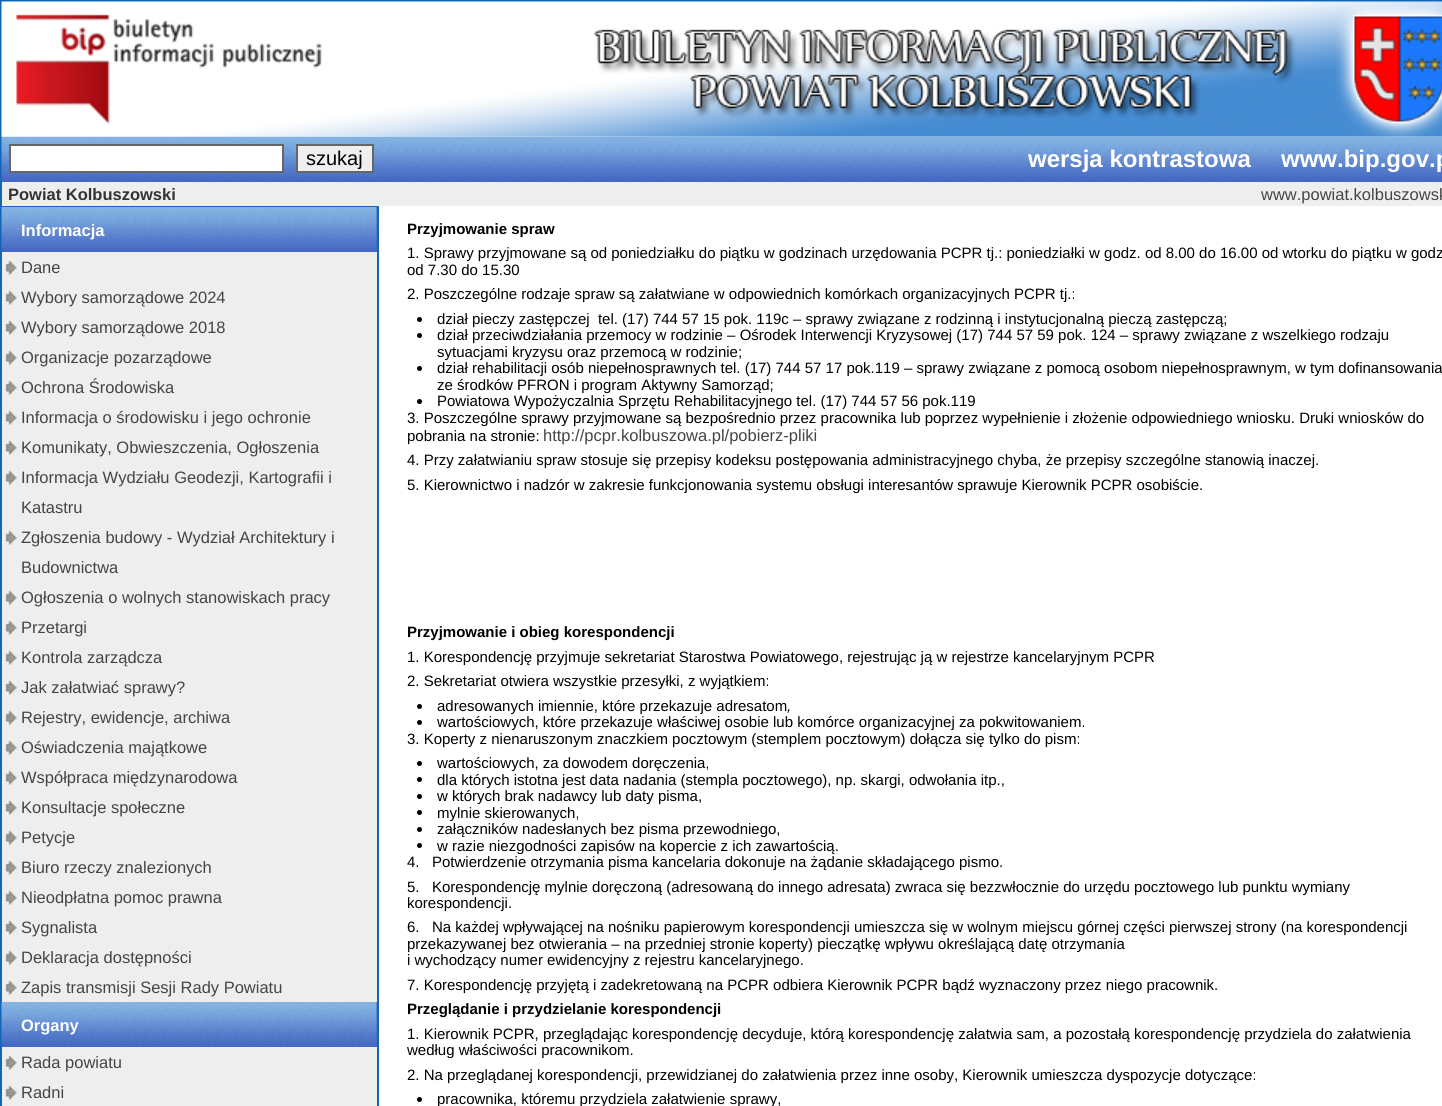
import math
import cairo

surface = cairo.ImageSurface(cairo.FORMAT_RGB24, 1442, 1106)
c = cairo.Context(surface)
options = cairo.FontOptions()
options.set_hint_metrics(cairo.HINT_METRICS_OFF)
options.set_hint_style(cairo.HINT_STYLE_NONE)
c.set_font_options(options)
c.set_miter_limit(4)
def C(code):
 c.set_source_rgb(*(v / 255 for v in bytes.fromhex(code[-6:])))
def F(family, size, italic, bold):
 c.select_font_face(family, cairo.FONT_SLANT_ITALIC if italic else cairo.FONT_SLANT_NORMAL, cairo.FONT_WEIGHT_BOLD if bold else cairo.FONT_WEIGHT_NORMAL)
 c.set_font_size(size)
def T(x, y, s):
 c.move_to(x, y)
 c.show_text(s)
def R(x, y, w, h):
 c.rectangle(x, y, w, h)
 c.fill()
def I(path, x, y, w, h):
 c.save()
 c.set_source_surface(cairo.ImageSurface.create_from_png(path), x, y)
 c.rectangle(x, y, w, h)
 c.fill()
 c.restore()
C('ffffff')
c.paint()
c.rectangle(1,1,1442,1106)
C('1365b8')
c.stroke()
C('4569c4')
R(2,181,1440,1)
I('2.png',1,136,1441,46)
I('1.png',1,1,1441,136)
C('ffffff')
c.rectangle(10,145,273,27)
c.fill_preserve()
C('666666')
c.stroke()
C('efefef')
c.rectangle(297,145,76,27)
c.fill_preserve()
C('666666')
c.stroke()
F('Liberation Sans',20,0,0)
C('000000')
T(306,165,'szukaj')
F('Liberation Sans',24,0,1)
C('ffffff')
T(1028,167,'wersja kontrastowa')
T(1281,167,'www.bip.gov.p')
C('eeeeee')
R(2,182,1440,24)
F('Liberation Sans',16.5,0,1)
C('333333')
T(8,200,'Powiat Kolbuszowski')
F('Liberation Sans',16.5,0,0)
C('444444')
T(1261,200,'www.powiat.kolbuszowsk')
C('eeeeee')
R(2,252,375,854)
C('1365b8')
R(2,206,376,1)
R(377,206,2,900)
C('4569c4')
R(376,207,1,45)
I('3.png',1,207,376,45)
F('Liberation Sans',16.5,0,1)
C('ffffff')
T(21,236,'Informacja')
I('4.png',5,260,12,15)
F('Liberation Sans',16.5,0,0)
C('444444')
T(21,273,'Dane')
I('4.png',5,290,12,15)
T(21,303,'Wybory samorządowe 2024')
I('4.png',5,320,12,15)
T(21,333,'Wybory samorządowe 2018')
I('4.png',5,350,12,15)
T(21,363,'Organizacje pozarządowe')
I('4.png',5,380,12,15)
T(21,393,'Ochrona Środowiska')
I('4.png',5,410,12,15)
T(21,423,'Informacja o środowisku i jego ochronie')
I('4.png',5,440,12,15)
T(21,453,'Komunikaty, Obwieszczenia, Ogłoszenia')
I('4.png',5,470,12,15)
T(21,483,'Informacja Wydziału Geodezji, Kartografii i')
T(21,513,'Katastru')
I('4.png',5,530,12,15)
T(21,543,'Zgłoszenia budowy - Wydział Architektury i')
T(21,573,'Budownictwa')
I('4.png',5,590,12,15)
T(21,603,'Ogłoszenia o wolnych stanowiskach pracy')
I('4.png',5,620,12,15)
T(21,633,'Przetargi')
I('4.png',5,650,12,15)
T(21,663,'Kontrola zarządcza')
I('4.png',5,680,12,15)
T(21,693,'Jak załatwiać sprawy?')
I('4.png',5,710,12,15)
T(21,723,'Rejestry, ewidencje, archiwa')
I('4.png',5,740,12,15)
T(21,753,'Oświadczenia majątkowe')
I('4.png',5,770,12,15)
T(21,783,'Współpraca międzynarodowa')
I('4.png',5,800,12,15)
T(21,813,'Konsultacje społeczne')
I('4.png',5,830,12,15)
T(21,843,'Petycje')
I('4.png',5,860,12,15)
T(21,873,'Biuro rzeczy znalezionych')
I('4.png',5,890,12,15)
T(21,903,'Nieodpłatna pomoc prawna')
I('4.png',5,920,12,15)
T(21,933,'Sygnalista')
I('4.png',5,950,12,15)
T(21,963,'Deklaracja dostępności')
I('4.png',5,980,12,15)
T(21,993,'Zapis transmisji Sesji Rady Powiatu')
C('4569c4')
R(376,1002,1,45)
I('5.png',1,1002,376,45)
F('Liberation Sans',16.5,0,1)
C('ffffff')
T(21,1031,'Organy')
I('4.png',5,1055,12,15)
F('Liberation Sans',16.5,0,0)
C('444444')
T(21,1068,'Rada powiatu')
I('4.png',5,1085,12,15)
T(21,1098,'Radni')
F('Liberation Sans',15,0,1)
C('000000')
T(407,234,'Przyjmowanie spraw')
F('Liberation Sans',15,0,0)
T(407,258,'1. Sprawy przyjmowane są od poniedziałku do piątku w godzinach urzędowania PCPR tj.: poniedziałki w godz. od 8.00 do 16.00 od wtorku do piątku w godz')
T(407,275,'od 7.30 do 15.30')
T(407,299,'2. Poszczególne rodzaje spraw są załatwiane w odpowiednich komórkach organizacyjnych PCPR tj.:')
c.new_path()
c.arc(419.5,319.5,2.5,0,2 * math.pi)
c.fill()
T(437,324,'dział pieczy zastępczej  tel. (17) 744 57 15 pok. 119c – sprawy związane z rodzinną i instytucjonalną pieczą zastępczą;')
c.new_path()
c.arc(419.5,335.5,2.5,0,2 * math.pi)
c.fill()
T(437,340,'dział przeciwdziałania przemocy w rodzinie – Ośrodek Interwencji Kryzysowej (17) 744 57 59 pok. 124 – sprawy związane z wszelkiego rodzaju')
T(437,357,'sytuacjami kryzysu oraz przemocą w rodzinie;')
c.new_path()
c.arc(419.5,368.5,2.5,0,2 * math.pi)
c.fill()
T(437,373,'dział rehabilitacji osób niepełnosprawnych tel. (17) 744 57 17 pok.119 – sprawy związane z pomocą osobom niepełnosprawnym, w tym dofinansowania')
T(437,390,'ze środków PFRON i program Aktywny Samorząd;')
c.new_path()
c.arc(419.5,401.5,2.5,0,2 * math.pi)
c.fill()
T(437,406,'Powiatowa Wypożyczalnia Sprzętu Rehabilitacyjnego tel. (17) 744 57 56 pok.119')
T(407,423,'3. Poszczególne sprawy przyjmowane są bezpośrednio przez pracownika lub poprzez wypełnienie i złożenie odpowiedniego wniosku. Druki wniosków do')
T(407,441,'pobrania na stronie:')
F('Liberation Sans',16.5,0,0)
C('444444')
T(543,441,'http://pcpr.kolbuszowa.pl/pobierz-pliki')
F('Liberation Sans',15,0,0)
C('000000')
T(407,465,'4. Przy załatwianiu spraw stosuje się przepisy kodeksu postępowania administracyjnego chyba, że przepisy szczególne stanowią inaczej.')
T(407,490,'5. Kierownictwo i nadzór w zakresie funkcjonowania systemu obsługi interesantów sprawuje Kierownik PCPR osobiście.')
F('Liberation Sans',15,0,1)
T(407,637,'Przyjmowanie i obieg korespondencji')
F('Liberation Sans',15,0,0)
T(407,662,'1. Korespondencję przyjmuje sekretariat Starostwa Powiatowego, rejestrując ją w rejestrze kancelaryjnym PCPR')
T(407,686,'2. Sekretariat otwiera wszystkie przesyłki, z wyjątkiem:')
c.new_path()
c.arc(419.5,706.5,2.5,0,2 * math.pi)
c.fill()
T(437,711,'adresowanych imiennie, które przekazuje adresatom')
F('Liberation Sans',15,1,0)
T(787,711,',')
c.new_path()
c.arc(419.5,722.5,2.5,0,2 * math.pi)
c.fill()
F('Liberation Sans',15,0,0)
T(437,727,'wartościowych, które przekazuje właściwej osobie lub komórce organizacyjnej za pokwitowaniem.')
T(407,744,'3. Koperty z nienaruszonym znaczkiem pocztowym (stemplem pocztowym) dołącza się tylko do pism:')
c.new_path()
c.arc(419.5,763.5,2.5,0,2 * math.pi)
c.fill()
T(437,768,'wartościowych, za dowodem doręczenia,')
c.new_path()
c.arc(419.5,779.5,2.5,0,2 * math.pi)
c.fill()
T(437,785,'dla których istotna jest data nadania (stempla pocztowego), np. skargi, odwołania itp.,')
c.new_path()
c.arc(419.5,796.5,2.5,0,2 * math.pi)
c.fill()
T(437,801,'w których brak nadawcy lub daty pisma,')
c.new_path()
c.arc(419.5,812.5,2.5,0,2 * math.pi)
c.fill()
T(437,818,'mylnie skierowanych,')
c.new_path()
c.arc(419.5,829.5,2.5,0,2 * math.pi)
c.fill()
T(437,834,'załączników nadesłanych bez pisma przewodniego,')
c.new_path()
c.arc(419.5,845.5,2.5,0,2 * math.pi)
c.fill()
T(437,851,'w razie niezgodności zapisów na kopercie z ich zawartością.')
T(407,867,'4.   Potwierdzenie otrzymania pisma kancelaria dokonuje na żądanie składającego pismo.')
T(407,892,'5.   Korespondencję mylnie doręczoną (adresowaną do innego adresata) zwraca się bezzwłocznie do urzędu pocztowego lub punktu wymiany')
T(407,908,'korespondencji.')
T(407,932,'6.   Na każdej wpływającej na nośniku papierowym korespondencji umieszcza się w wolnym miejscu górnej części pierwszej strony (na korespondencji')
T(407,949,'przekazywanej bez otwierania – na przedniej stronie koperty) pieczątkę wpływu określającą datę otrzymania')
T(407,965,'i wychodzący numer ewidencyjny z rejestru kancelaryjnego.')
T(407,990,'7. Korespondencję przyjętą i zadekretowaną na PCPR odbiera Kierownik PCPR bądź wyznaczony przez niego pracownik.')
F('Liberation Sans',15,0,1)
T(407,1014,'Przeglądanie i przydzielanie korespondencji')
F('Liberation Sans',15,0,0)
T(407,1039,'1. Kierownik PCPR, przeglądając korespondencję decyduje, którą korespondencję załatwia sam, a pozostałą korespondencję przydziela do załatwienia')
T(407,1055,'według właściwości pracownikom.')
T(407,1080,'2. Na przeglądanej korespondencji, przewidzianej do załatwienia przez inne osoby, Kierownik umieszcza dyspozycje dotyczące:')
c.new_path()
c.arc(419.5,1099.5,2.5,0,2 * math.pi)
c.fill()
T(437,1104,'pracownika, któremu przydziela załatwienie sprawy,')
surface.write_to_png('o.png')
